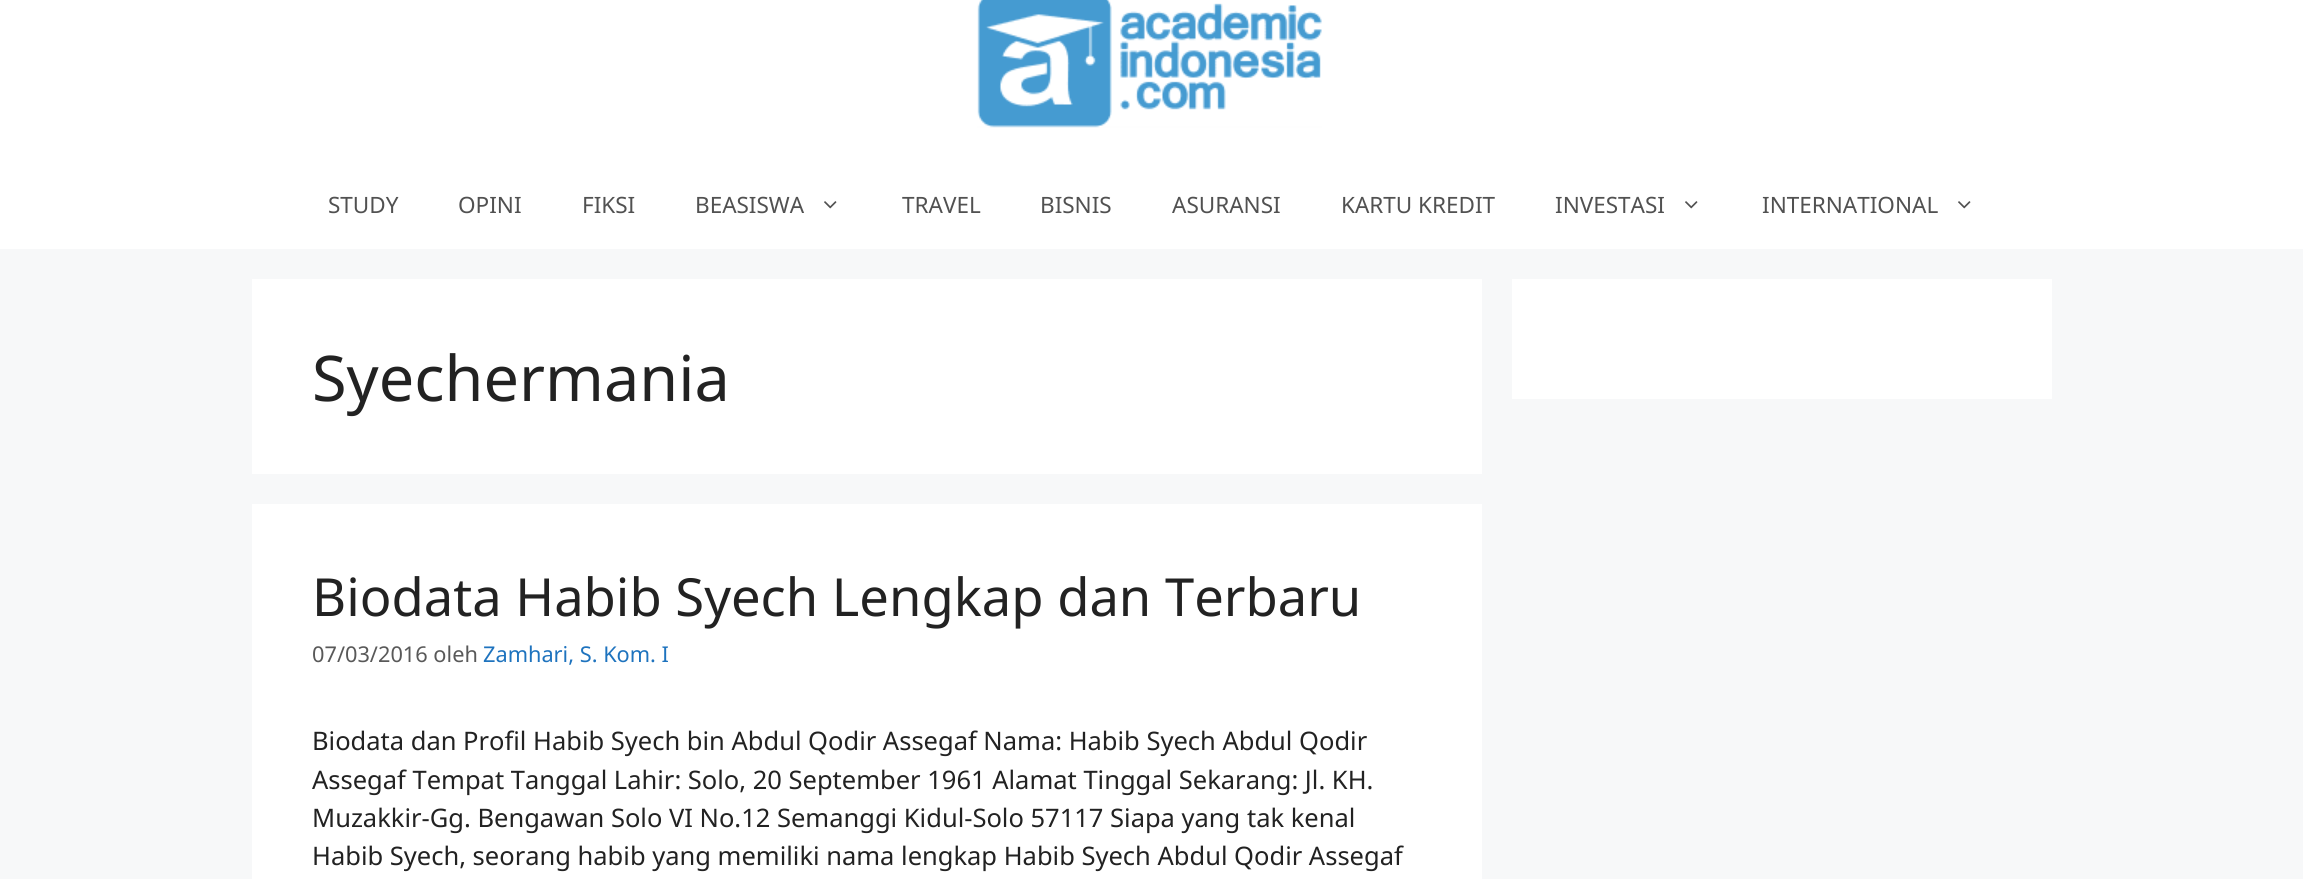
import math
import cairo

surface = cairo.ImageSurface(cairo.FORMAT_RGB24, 2303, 879)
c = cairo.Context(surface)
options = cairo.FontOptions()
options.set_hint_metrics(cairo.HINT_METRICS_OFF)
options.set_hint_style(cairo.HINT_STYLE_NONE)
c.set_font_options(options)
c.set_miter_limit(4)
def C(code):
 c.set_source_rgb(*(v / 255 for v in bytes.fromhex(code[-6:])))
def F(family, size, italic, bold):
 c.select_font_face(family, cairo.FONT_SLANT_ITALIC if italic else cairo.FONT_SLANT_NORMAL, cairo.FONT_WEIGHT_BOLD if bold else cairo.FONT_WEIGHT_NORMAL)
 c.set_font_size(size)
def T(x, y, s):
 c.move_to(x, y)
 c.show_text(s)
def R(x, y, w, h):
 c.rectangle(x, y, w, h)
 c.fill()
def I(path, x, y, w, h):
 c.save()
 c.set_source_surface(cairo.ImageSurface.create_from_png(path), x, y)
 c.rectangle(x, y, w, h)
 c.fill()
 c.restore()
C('f7f8f9')
c.paint()
C('ffffff')
R(0,0,2303,249)
I('1.png',977,0,345,128)
F('Noto Sans',22.5,0,0)
C('515151')
T(328,213,'STUDY')
T(458,213,'OPINI')
T(582,213,'FIKSI')
T(695,213,'BEASISWA')
I('2.png',824,201,13,8)
T(902,213,'TRAVEL')
T(1040,213,'BISNIS')
T(1172,213,'ASURANSI')
T(1341,213,'KARTU KREDIT')
T(1555,213,'INVESTASI')
I('2.png',1685,201,13,8)
T(1762,213,'INTERNATIONAL')
I('2.png',1958,201,13,8)
C('ffffff')
R(1512,279,540,120)
R(252,279,1230,195)
F('Noto Sans',63,0,0)
C('222222')
T(312,401,'Syechermania')
C('ffffff')
R(252,504,1230,375)
F('Noto Sans',52.5,0,0)
C('222222')
T(312,616,'Biodata Habib Syech Lengkap dan Terbaru')
F('Noto Sans',21.75,0,0)
C('595959')
T(312,662,'07/03/2016 oleh')
C('1e73be')
T(483,662,'Zamhari, S. Kom. I')
F('Noto Sans',25.5,0,0)
C('222222')
T(312,750,'Biodata dan Profil Habib Syech bin Abdul Qodir Assegaf Nama: Habib Syech Abdul Qodir')
T(312,789,'Assegaf Tempat Tanggal Lahir: Solo, 20 September 1961 Alamat Tinggal Sekarang: Jl. KH.')
T(312,827,'Muzakkir-Gg. Bengawan Solo VI No.12 Semanggi Kidul-Solo 57117 Siapa yang tak kenal')
T(312,865,'Habib Syech, seorang habib yang memiliki nama lengkap Habib Syech Abdul Qodir Assegaf')
surface.write_to_png('o.png')
